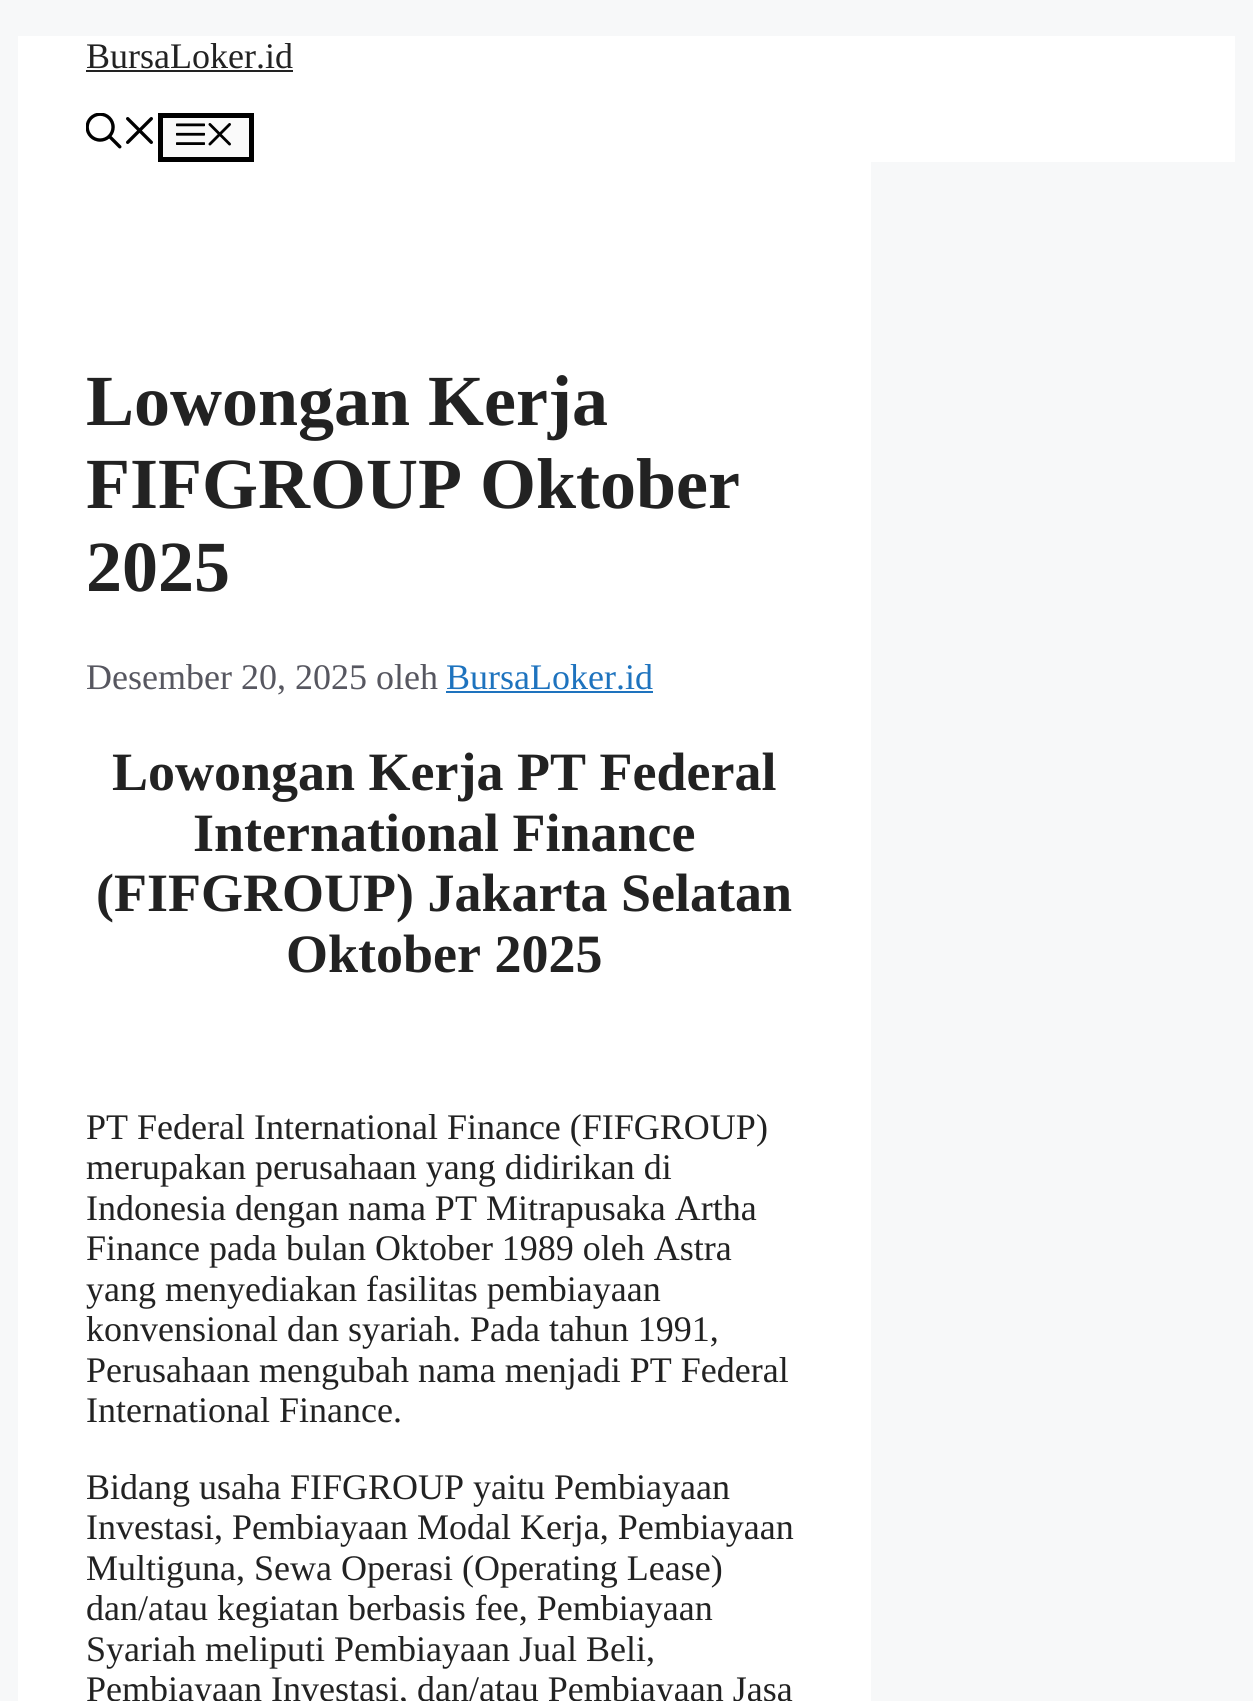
import math
import cairo

surface = cairo.ImageSurface(cairo.FORMAT_RGB24, 1253, 1701)
c = cairo.Context(surface)
options = cairo.FontOptions()
options.set_hint_metrics(cairo.HINT_METRICS_OFF)
options.set_hint_style(cairo.HINT_STYLE_NONE)
c.set_font_options(options)
c.set_miter_limit(4)
def C(code):
 c.set_source_rgb(*(v / 255 for v in bytes.fromhex(code[-6:])))
def F(family, size, italic, bold):
 c.select_font_face(family, cairo.FONT_SLANT_ITALIC if italic else cairo.FONT_SLANT_NORMAL, cairo.FONT_WEIGHT_BOLD if bold else cairo.FONT_WEIGHT_NORMAL)
 c.set_font_size(size)
def T(x, y, s):
 c.move_to(x, y)
 c.show_text(s)
def R(x, y, w, h):
 c.rectangle(x, y, w, h)
 c.fill()
def I(path, x, y, w, h):
 c.save()
 c.set_source_surface(cairo.ImageSurface.create_from_png(path), x, y)
 c.rectangle(x, y, w, h)
 c.fill()
 c.restore()
C('f7f8f9')
c.paint()
C('ffffff')
R(18,36,1217,126)
F('Liberation Serif',36,0,0)
C('222222')
T(86,68,'BursaLoker.id')
R(86,70,207,2)
I('1.png',86,113,36,36)
I('2.png',126,117,27,27)
C('fafafa')
c.rectangle(160.5,115.5,91,44)
c.fill_preserve()
C('000000')
c.set_line_width(5)
c.stroke()
I('3.png',176,123,29,22)
I('4.png',208,123,23,23)
C('ffffff')
R(18,162,853,1539)
F('Liberation Serif',72,0,1)
C('222222')
T(86,425,'Lowongan Kerja')
T(86,508,'FIFGROUP Oktober')
T(86,591,'2025')
F('Liberation Serif',36,0,0)
C('575760')
T(86,689,'Desember 20, 2025 oleh')
C('1e73be')
T(446,689,'BursaLoker.id')
R(446,691,207,2)
F('Liberation Serif',54,0,1)
C('222222')
T(112,790,'Lowongan Kerja PT Federal')
T(193,851,'International Finance')
T(96,911,'(FIFGROUP) Jakarta Selatan')
T(286,972,'Oktober 2025')
F('Liberation Serif',36,0,0)
T(86,1139,'PT Federal International Finance (FIFGROUP)')
T(86,1179,'merupakan perusahaan yang didirikan di')
T(86,1220,'Indonesia dengan nama PT Mitrapusaka Artha')
T(86,1260,'Finance pada bulan Oktober 1989 oleh Astra')
T(86,1301,'yang menyediakan fasilitas pembiayaan')
T(86,1341,'konvensional dan syariah. Pada tahun 1991,')
T(86,1382,'Perusahaan mengubah nama menjadi PT Federal')
T(86,1422,'International Finance.')
T(86,1499,'Bidang usaha FIFGROUP yaitu Pembiayaan')
T(86,1539,'Investasi, Pembiayaan Modal Kerja, Pembiayaan')
T(86,1580,'Multiguna, Sewa Operasi (Operating Lease)')
T(86,1620,'dan/atau kegiatan berbasis fee, Pembiayaan')
T(86,1661,'Syariah meliputi Pembiayaan Jual Beli,')
T(86,1701,'Pembiayaan Investasi, dan/atau Pembiayaan Jasa')
surface.write_to_png('o.png')
